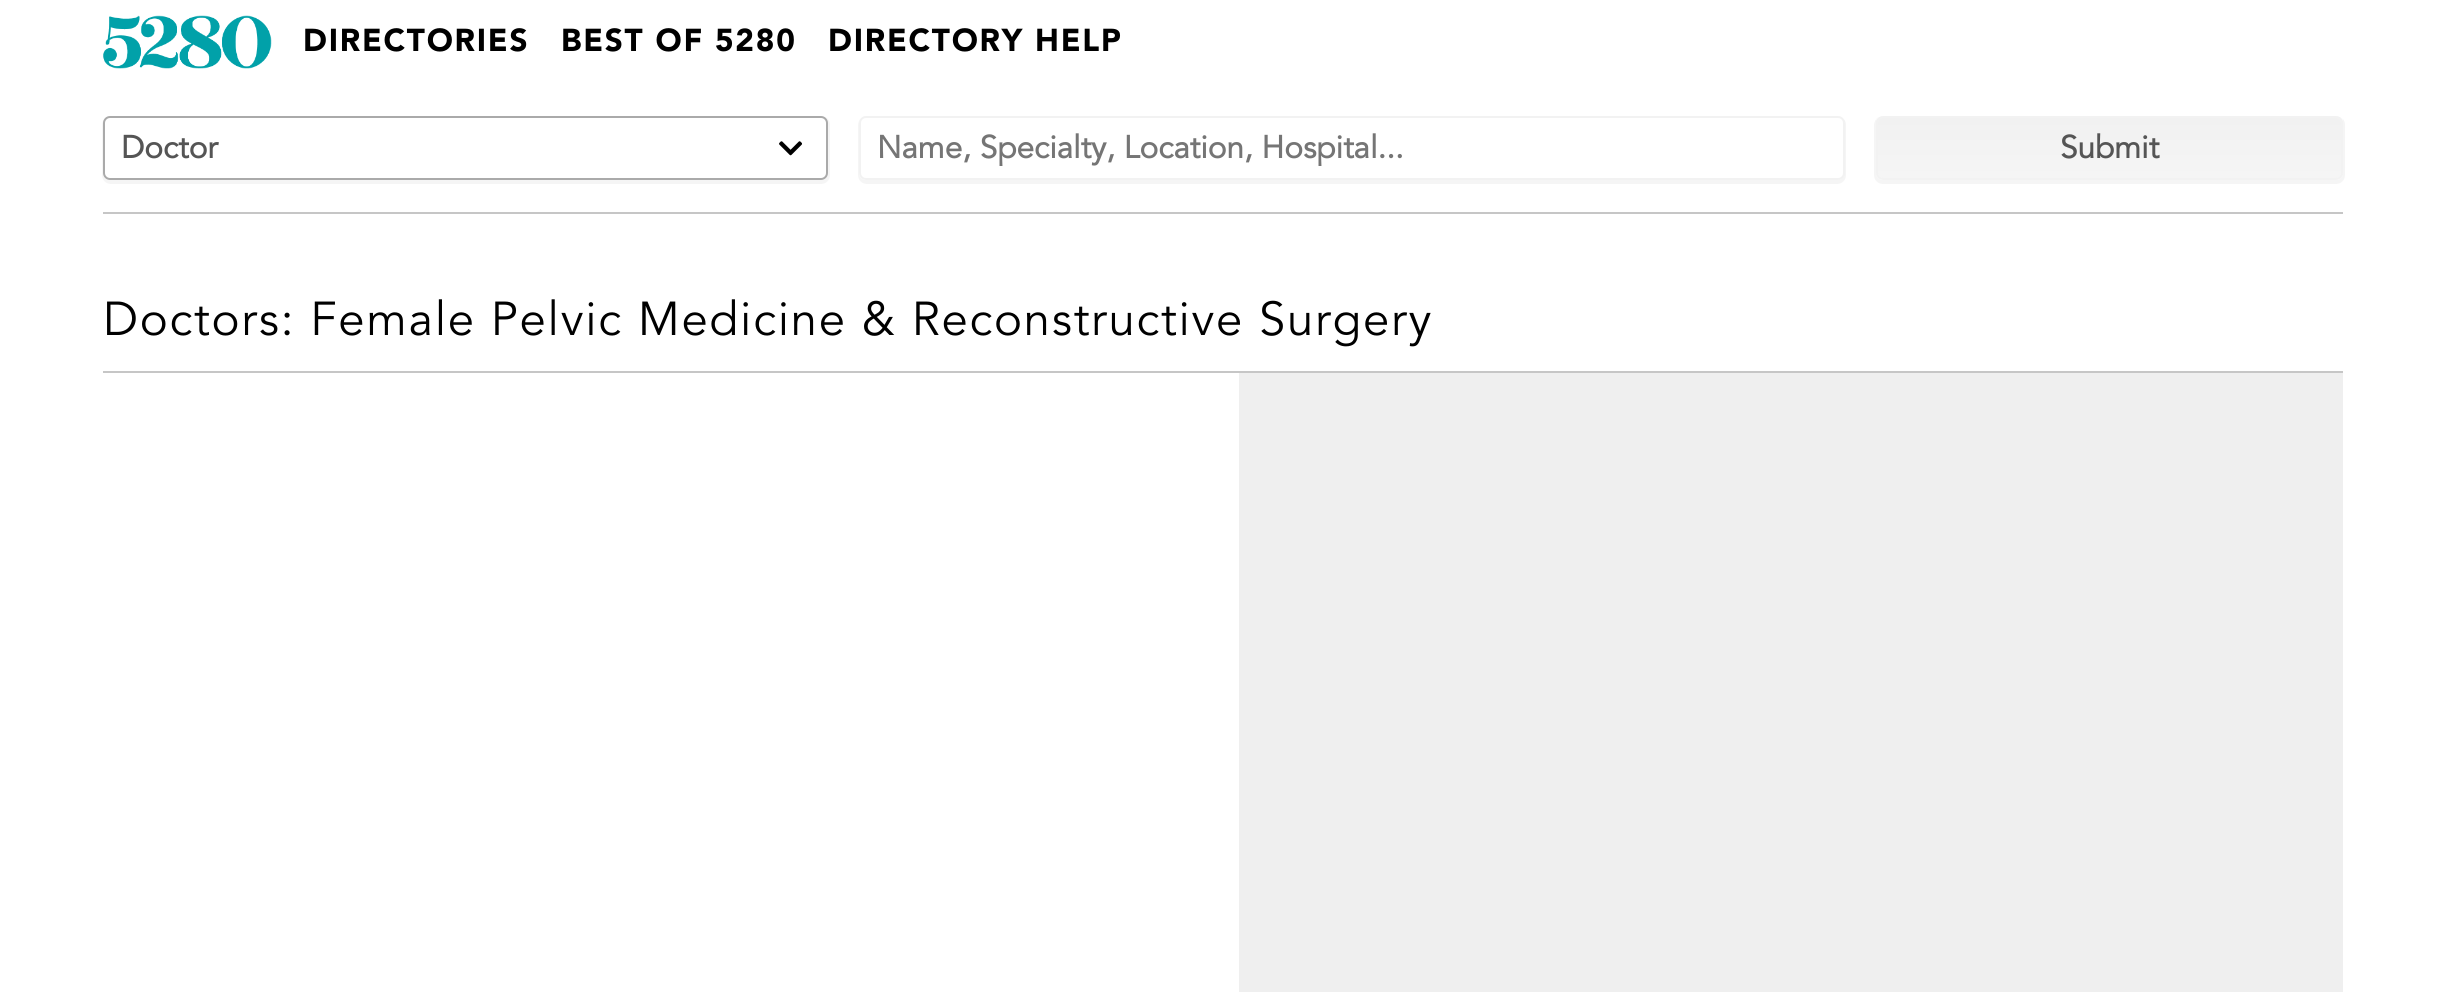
import math
import cairo

surface = cairo.ImageSurface(cairo.FORMAT_RGB24, 2445, 992)
c = cairo.Context(surface)
options = cairo.FontOptions()
options.set_hint_metrics(cairo.HINT_METRICS_OFF)
options.set_hint_style(cairo.HINT_STYLE_NONE)
c.set_font_options(options)
c.set_miter_limit(4)
def C(code):
 c.set_source_rgb(*(v / 255 for v in bytes.fromhex(code[-6:])))
def F(family, size, italic, bold):
 c.select_font_face(family, cairo.FONT_SLANT_ITALIC if italic else cairo.FONT_SLANT_NORMAL, cairo.FONT_WEIGHT_BOLD if bold else cairo.FONT_WEIGHT_NORMAL)
 c.set_font_size(size)
def T(x, y, s):
 c.move_to(x, y)
 c.show_text(s)
def L(x, y, s, letter, word):
 c.move_to(x, y)
 for ch in s:
  c.show_text(ch)
  c.rel_move_to(letter + word * (ch == ' '), 0)
def R(x, y, w, h):
 c.rectangle(x, y, w, h)
 c.fill()
def Q(x, y, w, h, r):
 c.new_sub_path()
 for i, (u, v) in enumerate([(x + w - r, y + h - r), (x + r, y + h - r), (x + r, y + r), (x + w - r, y + r)]):
  c.arc(u, v, r, i * math.pi / 2, (i + 1) * math.pi / 2)
 c.close_path()
def I(path, x, y, w, h):
 c.save()
 c.set_source_surface(cairo.ImageSurface.create_from_png(path), x, y)
 c.rectangle(x, y, w, h)
 c.fill()
 c.restore()
C('ffffff')
c.paint()
I('1.png',103,15,169,54)
F('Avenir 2',31.5,0,0)
C('000000')
L(303,51,'DIRECTORIES',1.75,0)
L(561,51,'BEST OF 5280',1.75,0)
L(828,51,'DIRECTORY HELP',1.75,0)
C('c6c6c6')
R(103,212,2240,2)
C('f5f5f5')
c.new_path()
c.move_to(104,119)
c.curve_to(103,121,102,123,102,125)
c.line_to(102,175)
c.curve_to(102,180,106,184,111,184)
c.line_to(821,184)
c.curve_to(826,184,830,180,830,175)
c.line_to(830,125)
c.curve_to(830,121,828,118,825,117)
c.curve_to(827,118,828,120,828,122)
c.line_to(828,173)
c.curve_to(828,177,825,180,821,180)
c.line_to(110,180)
c.curve_to(106,180,103,177,103,173)
c.line_to(103,122)
c.close_path()
c.fill()
I('2.png',779,141,23,15)
Q(104,117,723,62,6)
C('aaaaaa')
c.stroke()
F('Avenir',31.5,0,1)
C('555555')
T(121,158,'Doctor')
C('f5f5f5')
c.new_path()
c.move_to(860,119)
c.curve_to(859,121,858,123,858,125)
c.line_to(858,175)
c.curve_to(858,180,862,184,867,184)
c.line_to(1837,184)
c.curve_to(1842,184,1846,180,1846,175)
c.line_to(1846,125)
c.curve_to(1846,122,1845,120,1843,119)
c.curve_to(1844,120,1844,121,1844,122)
c.line_to(1844,173)
c.curve_to(1844,177,1841,180,1838,180)
c.line_to(866,180)
c.curve_to(862,180,859,177,859,173)
c.line_to(859,122)
c.close_path()
c.fill()
C('ffffff')
Q(860,117,984,62,6)
c.fill_preserve()
C('f2f2f2')
c.stroke()
c.save()
c.rectangle(877,128,922,38)
c.clip()
C('757575')
T(877,158,'Name, Specialty, Location, Hospital...')
c.restore()
C('f5f5f5')
c.new_path()
c.move_to(1878,117)
c.curve_to(1876,119,1874,122,1874,125)
c.line_to(1874,175)
c.curve_to(1874,180,1878,184,1883,184)
c.line_to(2336,184)
c.curve_to(2341,184,2345,180,2345,175)
c.line_to(2345,125)
c.curve_to(2345,122,2344,120,2342,118)
c.curve_to(2343,119,2343,121,2343,122)
c.line_to(2343,173)
c.curve_to(2343,177,2340,180,2336,180)
c.line_to(1883,180)
c.curve_to(1879,180,1876,177,1876,173)
c.line_to(1876,122)
c.curve_to(1876,120,1877,119,1878,117)
c.close_path()
c.fill()
c.save()
Q(1876,116,467,64,7)
c.clip()
gradient = cairo.LinearGradient(2110,179,2110,117)
gradient.add_color_stop_rgba(0,0.961,0.961,0.961,1)
gradient.add_color_stop_rgba(1,0.945,0.945,0.945,1)
c.set_source(gradient)
R(1876,117,467,62)
c.restore()
Q(1877,117,465,62,6)
C('f2f2f2')
c.stroke()
C('555555')
T(2060,158,'Submit')
F('Avenir',47.25,0,0)
C('000000')
L(103,335,'Doctors: Female Pelvic Medicine & Reconstructive Surgery',1.75,0)
C('c6c6c6')
R(103,371,2240,2)
C('efefef')
R(1239,373,1104,619)
surface.write_to_png('o.png')
